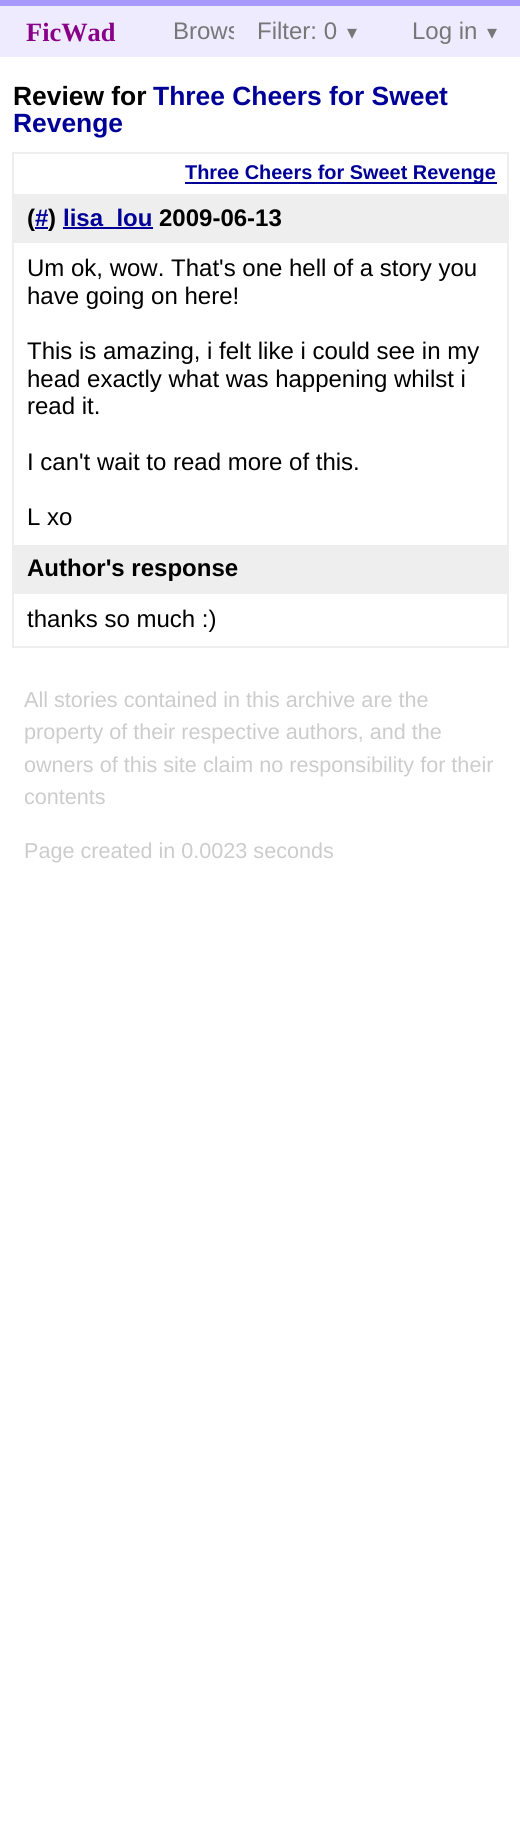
import math
import cairo

surface = cairo.ImageSurface(cairo.FORMAT_RGB24, 520, 1831)
c = cairo.Context(surface)
options = cairo.FontOptions()
options.set_hint_metrics(cairo.HINT_METRICS_OFF)
options.set_hint_style(cairo.HINT_STYLE_NONE)
c.set_font_options(options)
c.set_miter_limit(4)
def C(code):
 c.set_source_rgb(*(v / 255 for v in bytes.fromhex(code[-6:])))
def F(family, size, italic, bold):
 c.select_font_face(family, cairo.FONT_SLANT_ITALIC if italic else cairo.FONT_SLANT_NORMAL, cairo.FONT_WEIGHT_BOLD if bold else cairo.FONT_WEIGHT_NORMAL)
 c.set_font_size(size)
def T(x, y, s):
 c.move_to(x, y)
 c.show_text(s)
def R(x, y, w, h):
 c.rectangle(x, y, w, h)
 c.fill()
C('ffffff')
c.paint()
C('eeebff')
R(0,6,234,51)
C('a899ff')
R(0,0,520,6)
F('Liberation Serif',26.4,0,1)
C('880088')
T(26,41,'FicWad')
F('Liberation Sans',24,0,0)
C('777777')
T(173,39,'Brows')
C('eeebff')
R(234,6,286,51)
C('777777')
T(257,39,'Filter: 0')
F('DejaVu Sans',20,0,0)
T(347,39,'▾')
F('Liberation Sans',24,0,0)
T(412,39,'Log in')
F('DejaVu Sans',20,0,0)
T(487,39,'▾')
F('Liberation Sans',26.4,0,1)
C('000000')
T(13,105,'Review for')
C('000099')
T(153,105,'Three Cheers for Sweet')
T(13,132,'Revenge')
c.rectangle(13,153,495,494)
C('eeeeee')
c.stroke()
C('000099')
R(185,182,312,2)
F('Liberation Sans',19.9,0,1)
T(185,179,'Three Cheers for Sweet Revenge')
C('eeeeee')
R(14,194,493,49)
F('Liberation Sans',24,0,1)
C('000000')
T(27,226,'(')
C('000099')
T(35,226,'#')
R(35,227,13,2)
C('000000')
T(48,226,')')
C('000099')
R(63,227,90,2)
T(63,226,'lisa_lou')
C('000000')
T(159,226,'2009-06-13')
F('Liberation Sans',24,0,0)
T(27,276,'Um ok, wow. That\'s one hell of a story you')
T(27,304,'have going on here!')
T(27,359,'This is amazing, i felt like i could see in my')
T(27,387,'head exactly what was happening whilst i')
T(27,414,'read it.')
T(27,470,'I can\'t wait to read more of this.')
T(27,525,'L xo')
C('eeeeee')
R(14,545,493,49)
F('Liberation Sans',24,0,1)
C('000000')
T(27,576,'Author\'s response')
F('Liberation Sans',24,0,0)
T(27,627,'thanks so much :)')
F('Liberation Sans',21.6,0,0)
C('cccccc')
T(24,707,'All stories contained in this archive are the')
T(24,739,'property of their respective authors, and the')
T(24,772,'owners of this site claim no responsibility for their')
T(24,804,'contents')
T(24,858,'Page created in 0.0023 seconds')
surface.write_to_png('o.png')
